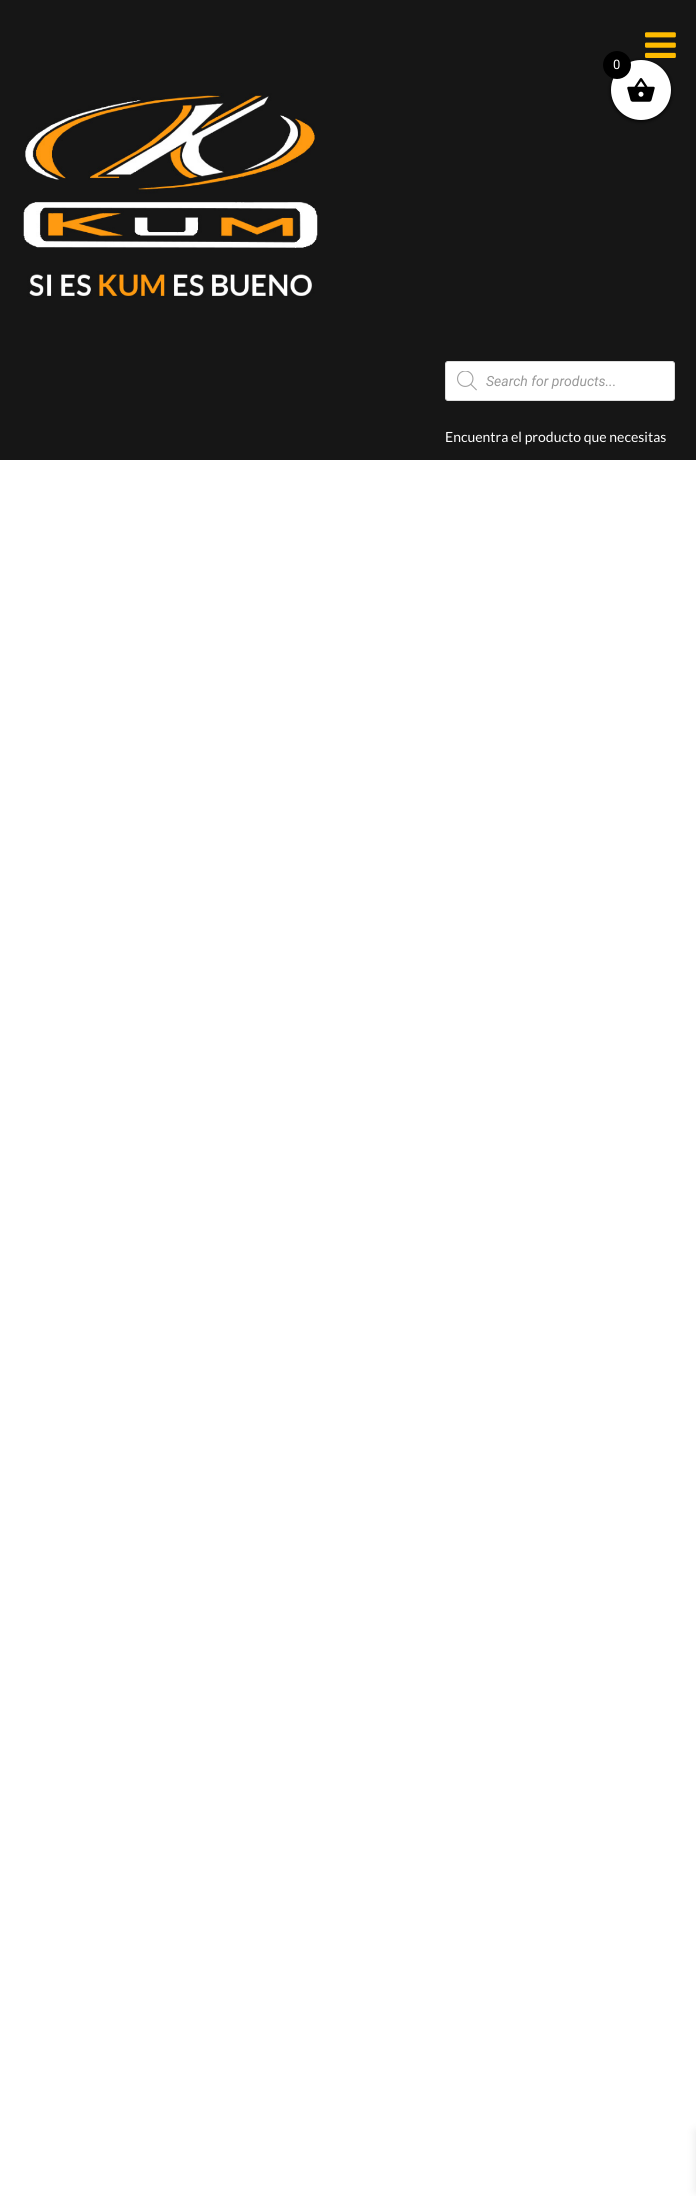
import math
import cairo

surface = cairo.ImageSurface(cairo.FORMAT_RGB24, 696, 2196)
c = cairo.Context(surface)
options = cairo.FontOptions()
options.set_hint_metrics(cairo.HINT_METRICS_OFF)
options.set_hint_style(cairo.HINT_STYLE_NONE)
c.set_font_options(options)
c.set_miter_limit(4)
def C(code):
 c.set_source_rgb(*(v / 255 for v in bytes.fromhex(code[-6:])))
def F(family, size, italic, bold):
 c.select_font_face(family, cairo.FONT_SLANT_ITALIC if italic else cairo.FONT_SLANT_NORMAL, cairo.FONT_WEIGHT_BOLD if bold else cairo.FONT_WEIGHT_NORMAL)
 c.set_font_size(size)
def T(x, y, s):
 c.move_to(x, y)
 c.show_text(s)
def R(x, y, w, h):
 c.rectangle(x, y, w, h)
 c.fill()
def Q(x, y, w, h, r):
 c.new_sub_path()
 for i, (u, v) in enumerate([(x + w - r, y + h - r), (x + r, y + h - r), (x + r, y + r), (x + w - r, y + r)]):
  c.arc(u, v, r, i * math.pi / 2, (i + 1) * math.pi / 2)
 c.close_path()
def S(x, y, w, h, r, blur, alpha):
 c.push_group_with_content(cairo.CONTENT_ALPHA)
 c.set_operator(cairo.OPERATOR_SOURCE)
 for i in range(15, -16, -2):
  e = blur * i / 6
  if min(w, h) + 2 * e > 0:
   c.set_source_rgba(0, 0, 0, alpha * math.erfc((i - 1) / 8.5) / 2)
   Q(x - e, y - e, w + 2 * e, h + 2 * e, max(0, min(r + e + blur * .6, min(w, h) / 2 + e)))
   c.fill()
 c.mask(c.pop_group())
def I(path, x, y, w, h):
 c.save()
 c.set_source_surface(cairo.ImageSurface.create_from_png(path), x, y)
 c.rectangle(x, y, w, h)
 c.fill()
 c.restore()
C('ffffff')
c.paint()
C('161616')
R(0,0,696,460)
I('2.png',645,32,31,26)
C('000000')
S(611,61,60,60,30,2,1)
C('ffffff')
c.arc(641,90,30,0,2 * math.pi)
c.fill()
I('1.png',627,78,28,24)
C('000000')
c.arc(617,65,14,0,2 * math.pi)
c.fill()
F('Roboto',13,0,0)
C('ffffff')
T(613,69,'0')
C('000000')
S(696,2131,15,60,0,5,.1)
I('3.png',23,93,295,205)
C('ffffff')
Q(445.5,361.5,229,39,2.5)
c.fill_preserve()
C('dddddd')
c.set_line_width(1)
c.stroke()
I('4.png',457,371,20,20)
F('Roboto',14,1,0)
C('999999')
T(486,386,'Search for products...')
F('Lato',14,0,0)
C('ffffff')
T(445,442,'Encuentra el producto que necesitas')
surface.write_to_png('o.png')
